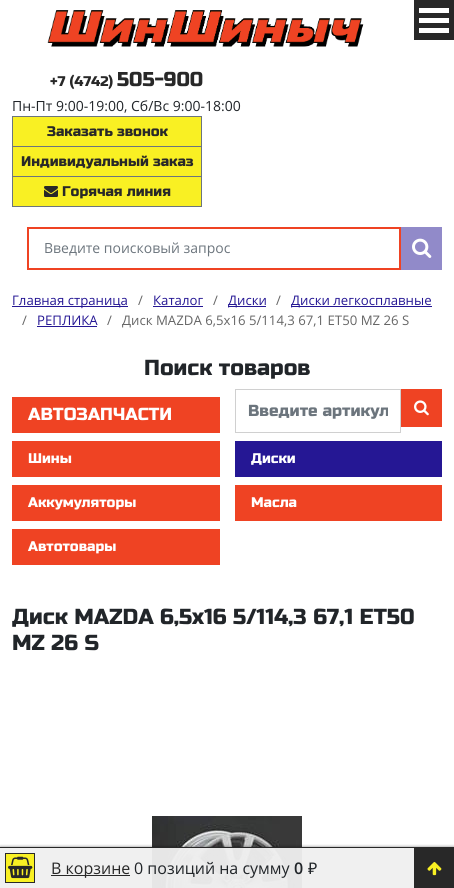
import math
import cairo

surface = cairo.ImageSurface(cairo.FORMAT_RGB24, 454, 888)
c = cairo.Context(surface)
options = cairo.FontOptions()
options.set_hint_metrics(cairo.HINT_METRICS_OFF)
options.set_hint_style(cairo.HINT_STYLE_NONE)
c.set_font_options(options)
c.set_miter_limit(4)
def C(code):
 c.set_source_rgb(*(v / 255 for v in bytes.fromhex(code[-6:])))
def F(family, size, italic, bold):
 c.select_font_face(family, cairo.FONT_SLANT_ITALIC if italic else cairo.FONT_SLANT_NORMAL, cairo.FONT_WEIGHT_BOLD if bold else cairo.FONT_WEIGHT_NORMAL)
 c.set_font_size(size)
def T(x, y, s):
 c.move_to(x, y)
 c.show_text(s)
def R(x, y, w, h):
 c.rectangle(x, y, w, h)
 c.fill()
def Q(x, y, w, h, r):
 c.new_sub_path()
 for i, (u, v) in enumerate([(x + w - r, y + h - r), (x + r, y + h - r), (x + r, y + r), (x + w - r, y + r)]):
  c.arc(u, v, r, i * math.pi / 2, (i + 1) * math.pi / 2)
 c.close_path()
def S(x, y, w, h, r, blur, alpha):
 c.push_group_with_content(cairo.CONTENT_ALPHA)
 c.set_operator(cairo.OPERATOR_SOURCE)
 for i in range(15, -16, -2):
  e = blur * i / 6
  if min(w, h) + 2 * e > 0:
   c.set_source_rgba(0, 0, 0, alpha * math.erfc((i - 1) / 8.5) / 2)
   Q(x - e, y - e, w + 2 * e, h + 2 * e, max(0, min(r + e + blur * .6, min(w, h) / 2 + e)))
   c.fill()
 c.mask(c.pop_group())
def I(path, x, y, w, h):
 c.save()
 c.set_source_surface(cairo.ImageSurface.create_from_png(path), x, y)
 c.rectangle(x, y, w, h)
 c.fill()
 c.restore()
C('ffffff')
c.paint()
I('1.png',47,10,317,37)
C('282828')
R(414,0,40,40)
C('ffffff')
R(419,8,30,5)
R(419,28,30,5)
R(419,18,30,5)
F('Russo One',14,0,0)
C('282828')
T(50,86,'+7 (4742)')
F('Russo One',20,0,0)
T(117,86,'505-900')
F('Open Sans',14,0,0)
C('212529')
T(12,111,'Пн-Пт 9:00-19:00, Сб/Вс 9:00-18:00')
C('f9f023')
R(13,117,188,89)
c.rectangle(12.5,116.5,189,30)
C('6c757d')
c.set_line_width(1)
c.stroke()
F('Russo One',14,0,0)
C('282828')
T(47,136,'Заказать звонок')
c.rectangle(12.5,146.5,189,30)
C('6c757d')
c.stroke()
C('282828')
T(21,166,'Индивидуальный заказ')
c.rectangle(12.5,176.5,189,30)
C('6c757d')
c.stroke()
I('2.png',44,186,14,11)
C('282828')
T(62,196,'Горячая линия')
c.rectangle(28,228,372,41)
C('ef4323')
c.set_line_width(2)
c.stroke()
F('Open Sans',14,0,0)
C('6c757d')
T(44,253,'Введите поисковый запрос')
C('918ac9')
R(401,227,41,43)
I('3.png',412,238,20,20)
C('251794')
R(12,306,116,1)
F('Open Sans',13.2,0,0)
T(12,305,'Главная страница')
C('666666')
T(138,305,'/')
C('251794')
T(153,305,'Каталог')
R(153,306,50,1)
C('666666')
T(213,305,'/')
C('251794')
R(228,306,38,1)
T(228,305,'Диски')
C('666666')
T(276,305,'/')
C('251794')
R(291,306,141,1)
T(291,305,'Диски легкосплавные')
C('666666')
T(22,325,'/')
C('251794')
T(37,325,'РЕПЛИКА')
R(37,326,60,1)
C('666666')
T(107,325,'/')
T(122,325,'Диск MAZDA 6,5x16 5/114,3 67,1 ET50 MZ 26 S')
F('Russo One',21.75,0,0)
C('212529')
T(144,375,'Поиск товаров')
C('ef4323')
R(12,397,208,36)
F('Russo One',17.5,0,0)
C('ffffff')
T(28,420,'АВТОЗАПЧАСТИ')
c.rectangle(235.5,389.5,165,43)
C('d0d0d0')
c.set_line_width(1)
c.stroke()
c.save()
c.rectangle(248,401,140,19)
c.clip()
F('Russo One',16,0,0)
C('6c757d')
T(248,416,'Введите артикул')
c.restore()
C('ef4323')
R(401,389,41,38)
I('4.png',414,400,15,16)
R(12,441,208,36)
F('Russo One',14,0,0)
C('ffffff')
T(28,463,'Шины')
C('251794')
R(235,441,207,36)
C('ffffff')
T(251,463,'Диски')
C('ef4323')
R(12,485,208,36)
C('ffffff')
T(28,507,'Аккумуляторы')
C('ef4323')
R(235,485,207,36)
C('ffffff')
T(251,507,'Масла')
C('ef4323')
R(12,529,208,36)
C('ffffff')
T(28,551,'Автотовары')
F('Russo One',21.75,0,0)
C('212529')
T(12,624,'Диск MAZDA 6,5x16 5/114,3 67,1 ET50')
T(12,650,'MZ 26 S')
I('5.png',152,816,150,72)
c.save()
c.rectangle(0,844,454,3)
c.clip()
C('000000')
S(0,847,454,41,0,1.5,.5)
c.restore()
c.set_source_rgba(0.941,0.941,0.941,0.95)
R(0,848,414,40)
C('282828')
R(0,847,454,1)
C('f9f023')
c.rectangle(5.5,853.5,29,29)
c.fill_preserve()
C('282828')
c.stroke()
I('6.png',8,856,25,23)
R(51,875,79,1)
F('Open Sans',16,0,0)
T(51,874,'В корзине')
C('212529')
T(134,874,'0 позиций на сумму')
F('Open Sans SemiBold',16,0,0)
T(294,874,'0')
F('Noto Sans',16,0,0)
T(308,874,'₽')
C('282828')
R(414,848,40,40)
I('7.png',427,862,15,14)
surface.write_to_png('o.png')
